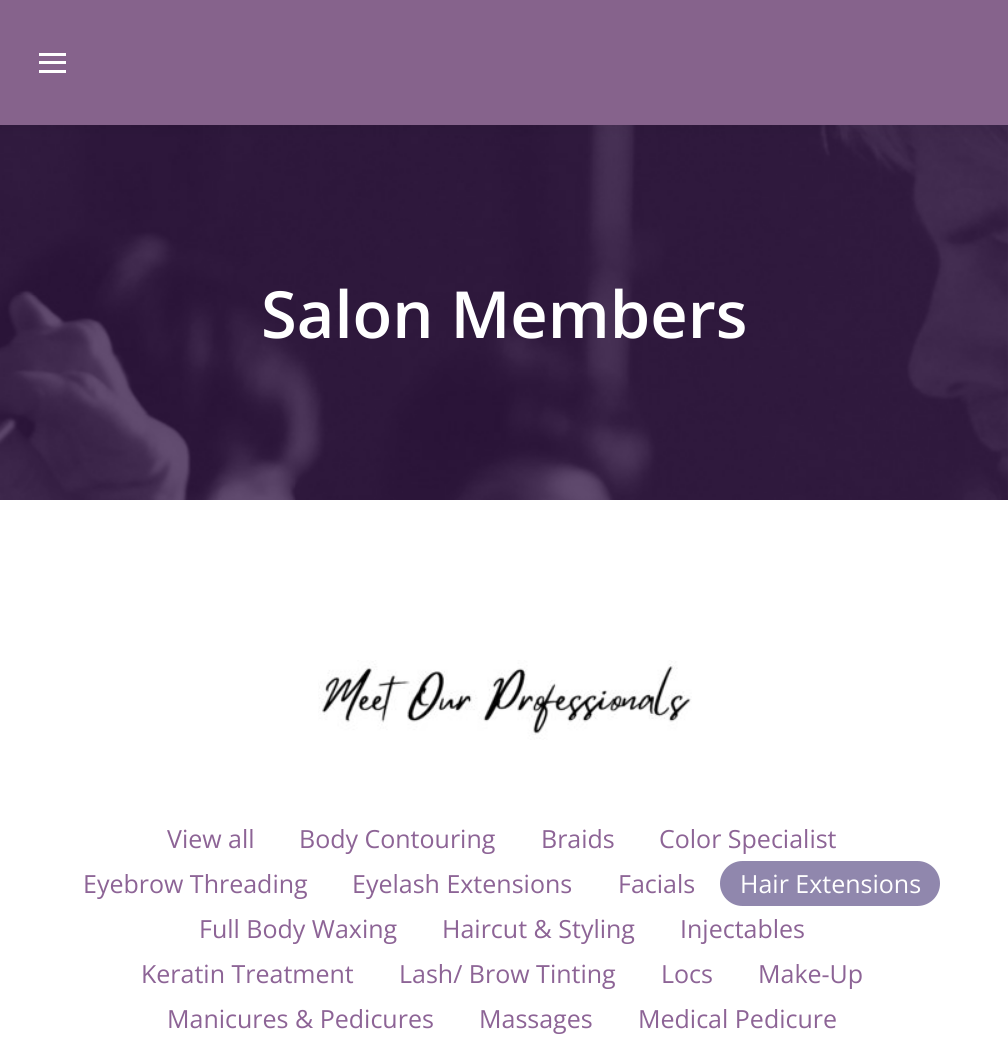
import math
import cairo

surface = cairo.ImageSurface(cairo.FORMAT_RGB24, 1008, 1040)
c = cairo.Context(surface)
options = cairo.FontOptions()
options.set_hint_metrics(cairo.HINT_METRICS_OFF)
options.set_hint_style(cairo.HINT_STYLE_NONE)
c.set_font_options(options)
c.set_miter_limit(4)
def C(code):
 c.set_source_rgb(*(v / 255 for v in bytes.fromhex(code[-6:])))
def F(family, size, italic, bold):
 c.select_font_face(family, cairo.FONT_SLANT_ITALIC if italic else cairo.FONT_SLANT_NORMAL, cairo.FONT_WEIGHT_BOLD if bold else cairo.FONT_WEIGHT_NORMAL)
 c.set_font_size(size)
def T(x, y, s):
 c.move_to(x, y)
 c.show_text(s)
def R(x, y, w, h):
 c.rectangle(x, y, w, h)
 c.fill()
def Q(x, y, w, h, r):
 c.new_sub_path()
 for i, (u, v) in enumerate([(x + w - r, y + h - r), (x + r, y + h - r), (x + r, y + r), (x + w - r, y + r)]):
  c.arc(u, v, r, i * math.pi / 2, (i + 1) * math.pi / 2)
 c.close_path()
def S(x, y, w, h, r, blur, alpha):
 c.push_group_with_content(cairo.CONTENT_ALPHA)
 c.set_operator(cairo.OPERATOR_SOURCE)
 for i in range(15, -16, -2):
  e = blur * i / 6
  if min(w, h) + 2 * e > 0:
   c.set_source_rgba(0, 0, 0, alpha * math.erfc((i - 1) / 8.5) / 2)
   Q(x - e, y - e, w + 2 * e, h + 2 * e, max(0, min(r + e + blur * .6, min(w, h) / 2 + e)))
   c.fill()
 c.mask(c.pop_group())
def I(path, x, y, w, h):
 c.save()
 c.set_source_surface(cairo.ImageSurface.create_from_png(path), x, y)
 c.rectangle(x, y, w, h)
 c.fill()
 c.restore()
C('ffffff')
c.paint()
I('1.png',0,125,1008,375)
C('000000')
S(-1,-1,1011,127,0,9.5,.07)
C('86638c')
R(0,0,1008,125)
C('ffffff')
R(39,53,27,3)
R(39,61,27,3)
R(39,70,27,3)
F('Open Sans SemiBold',65,0,0)
T(261,338,'Salon Members')
I('2.png',318,660,374,80)
F('Open Sans',25,0,0)
C('8d6496')
T(167,848,'View all')
T(299,848,'Body Contouring')
T(541,848,'Braids')
T(659,848,'Color Specialist')
T(83,893,'Eyebrow Threading')
T(352,893,'Eyelash Extensions')
T(618,893,'Facials')
C('9087ad')
Q(720,861,220,45,22.5)
c.fill()
C('ffffff')
T(740,893,'Hair Extensions')
C('8d6496')
T(199,938,'Full Body Waxing')
T(442,938,'Haircut & Styling')
T(680,938,'Injectables')
T(141,983,'Keratin Treatment')
T(399,983,'Lash/ Brow Tinting')
T(661,983,'Locs')
T(758,983,'Make-Up')
T(167,1028,'Manicures & Pedicures')
T(479,1028,'Massages')
T(638,1028,'Medical Pedicure')
surface.write_to_png('o.png')
